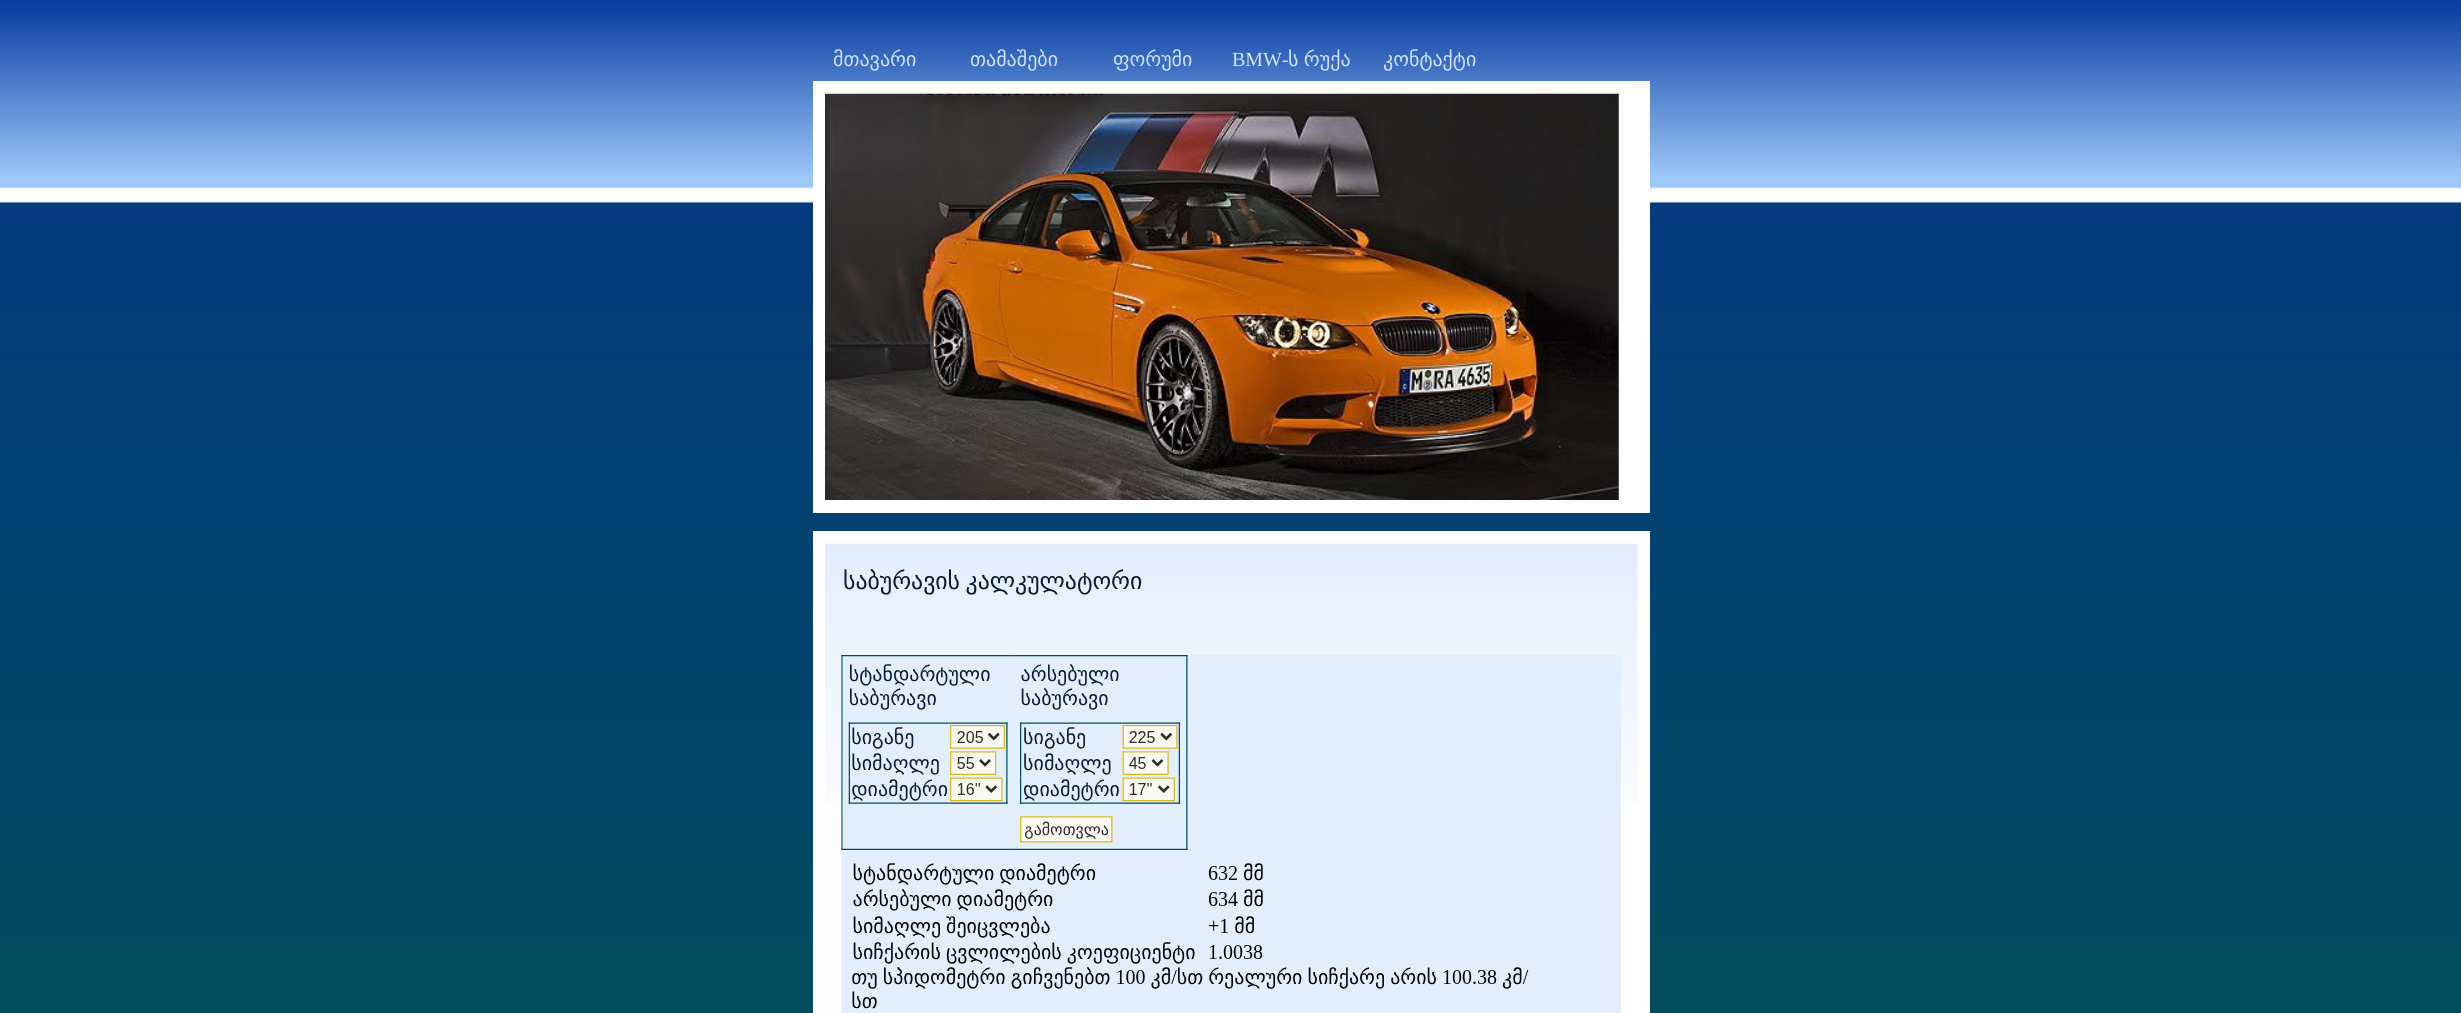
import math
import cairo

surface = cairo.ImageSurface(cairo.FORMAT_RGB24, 2461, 1013)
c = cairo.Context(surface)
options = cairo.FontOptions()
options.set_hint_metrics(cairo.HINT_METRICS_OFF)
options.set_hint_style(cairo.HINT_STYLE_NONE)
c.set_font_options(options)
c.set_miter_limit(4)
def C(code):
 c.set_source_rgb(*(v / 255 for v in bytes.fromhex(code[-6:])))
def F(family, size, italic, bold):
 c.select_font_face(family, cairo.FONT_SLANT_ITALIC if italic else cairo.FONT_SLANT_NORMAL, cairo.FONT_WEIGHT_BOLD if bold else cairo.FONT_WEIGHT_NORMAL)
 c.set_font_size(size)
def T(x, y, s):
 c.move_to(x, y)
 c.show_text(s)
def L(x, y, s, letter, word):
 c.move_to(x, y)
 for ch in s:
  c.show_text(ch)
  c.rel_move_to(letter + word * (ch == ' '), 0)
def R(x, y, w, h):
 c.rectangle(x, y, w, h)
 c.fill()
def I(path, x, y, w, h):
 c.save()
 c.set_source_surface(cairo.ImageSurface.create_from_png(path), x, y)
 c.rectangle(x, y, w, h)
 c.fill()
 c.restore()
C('014d5d')
c.paint()
I('1.png',0,0,2461,939)
F('DejaVu Sans',20,0,0)
C('cde2fc')
T(833,66,'მთავარი')
T(970,66,'თამაშები')
T(1113,66,'ფორუმი')
F('Liberation Serif',20,0,0)
T(1232,66,'BMW-')
F('DejaVu Sans',20,0,0)
L(1288,66,'ს რუქა',0,-1)
T(1383,66,'კონტაქტი')
C('ffffff')
R(813,81,837,432)
I('2.png',825,93,794,407)
R(813,531,837,482)
I('3.png',825,543,813,262)
F('DejaVu Sans',23.75,0,0)
C('061c37')
L(843,589,'საბურავის კალკულატორი',0,-2)
I('4.png',841,655,780,358)
surface.write_to_png('o.png')
